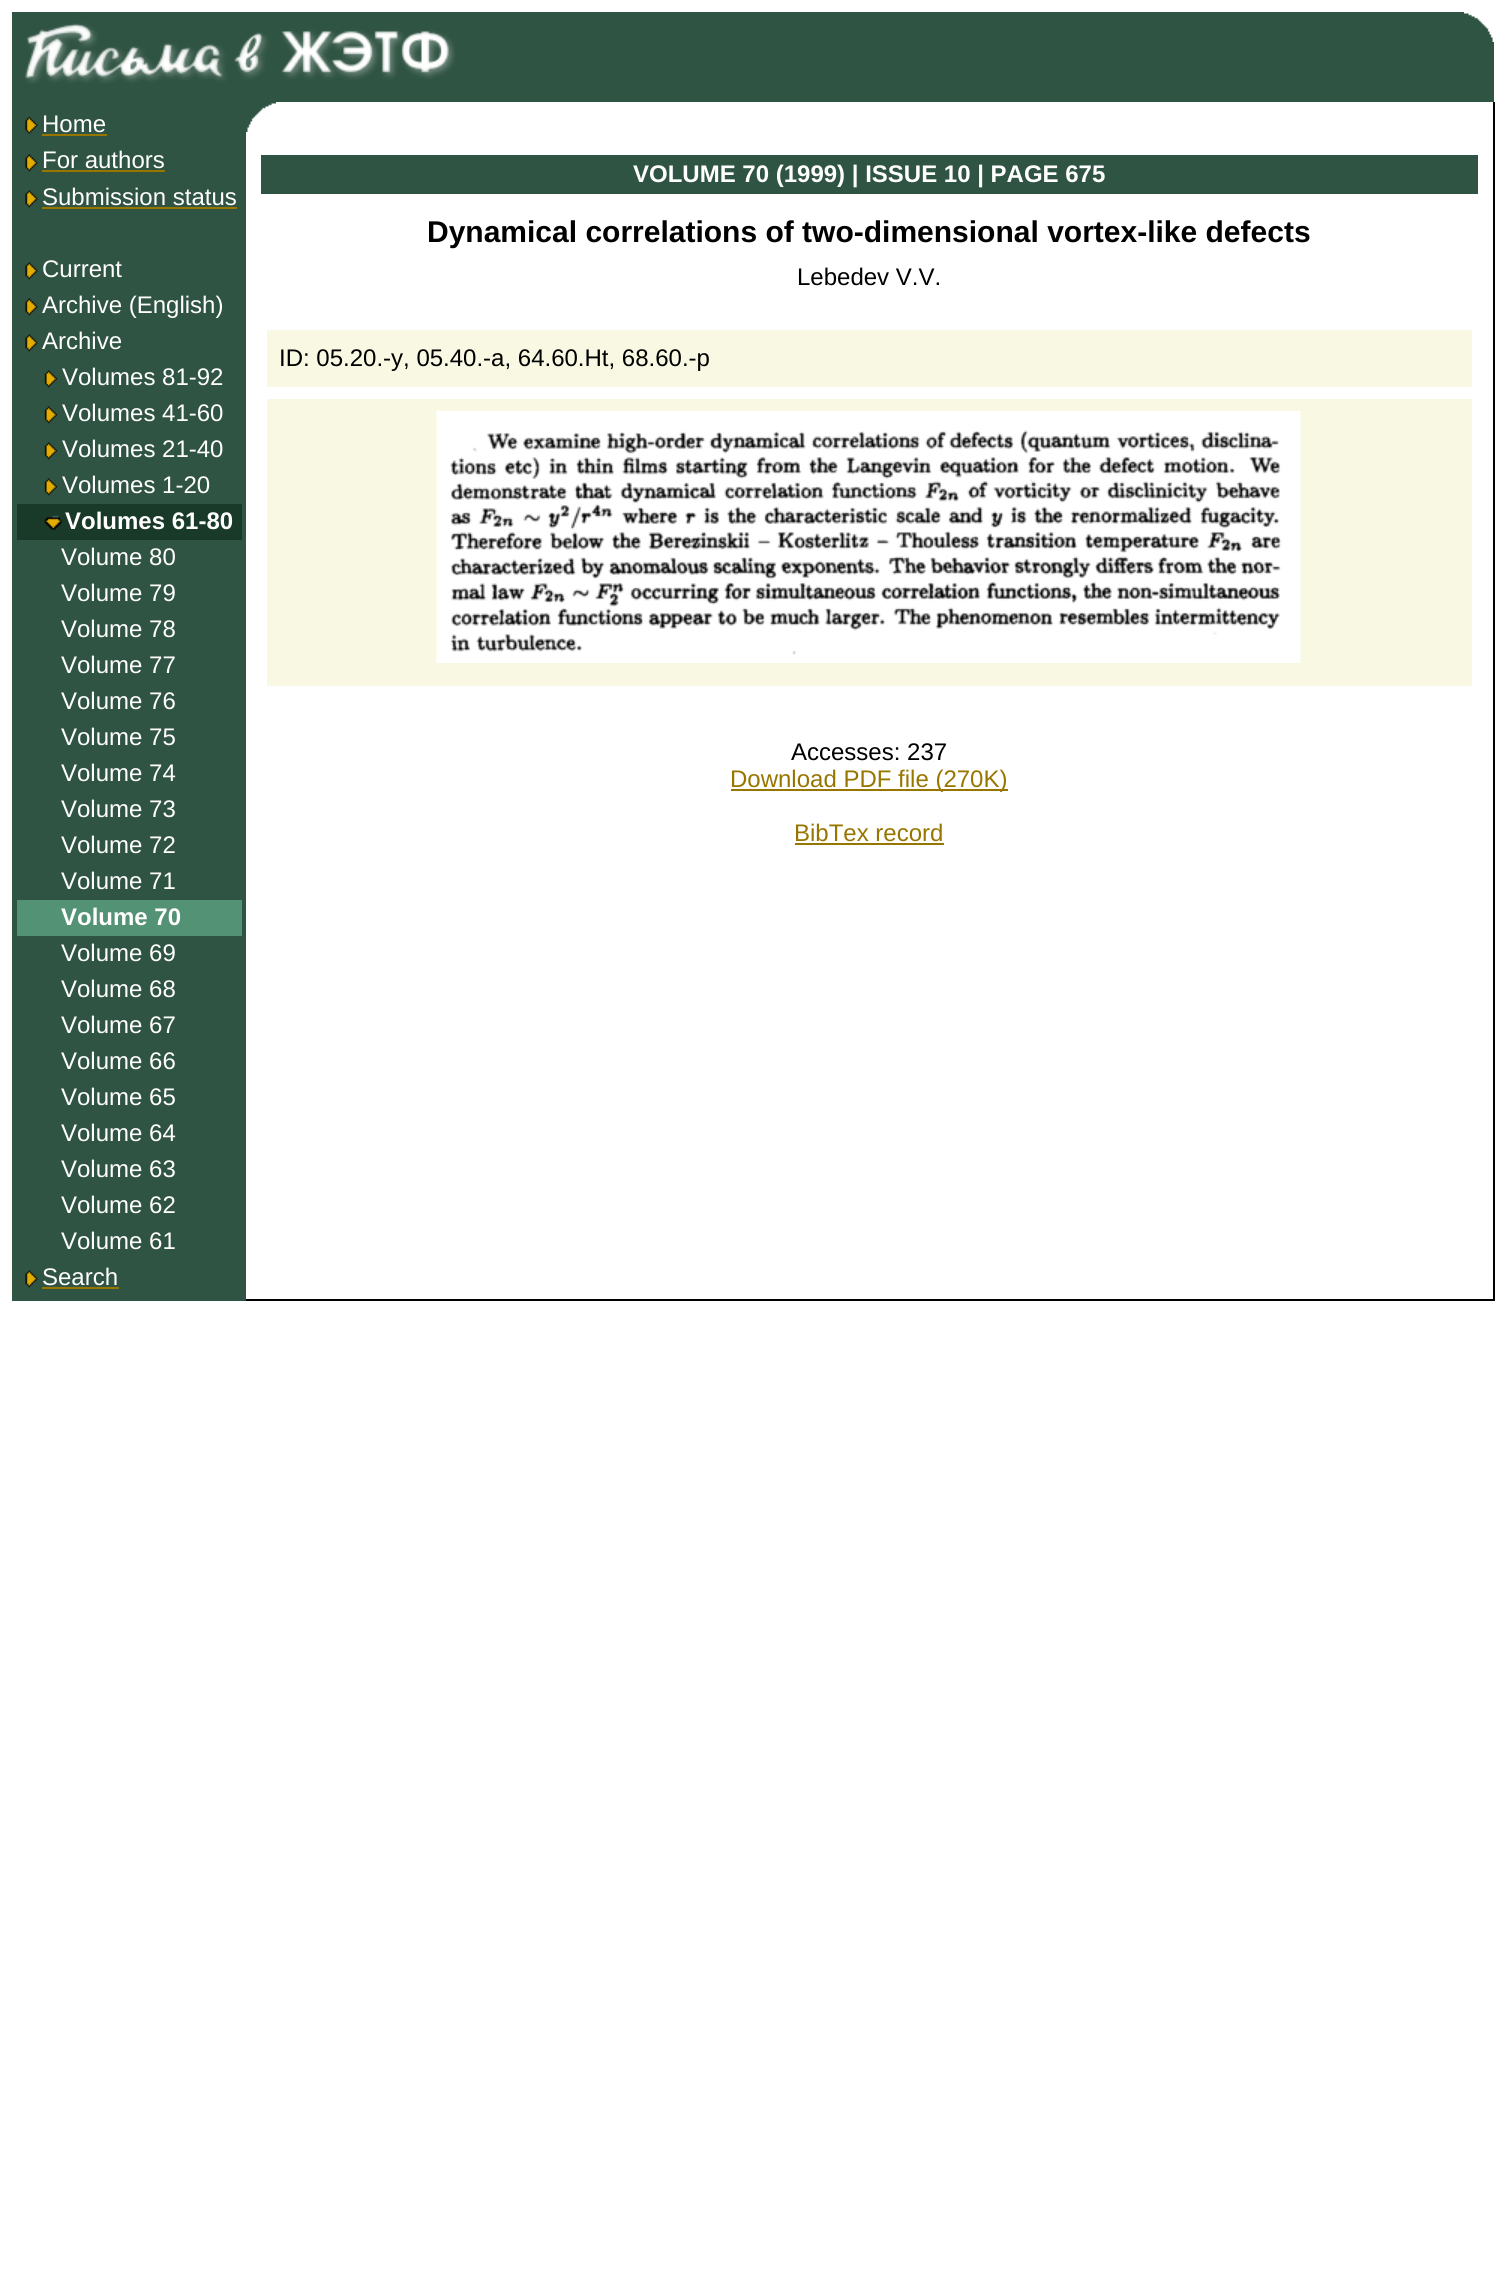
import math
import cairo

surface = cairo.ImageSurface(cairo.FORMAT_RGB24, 1506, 2289)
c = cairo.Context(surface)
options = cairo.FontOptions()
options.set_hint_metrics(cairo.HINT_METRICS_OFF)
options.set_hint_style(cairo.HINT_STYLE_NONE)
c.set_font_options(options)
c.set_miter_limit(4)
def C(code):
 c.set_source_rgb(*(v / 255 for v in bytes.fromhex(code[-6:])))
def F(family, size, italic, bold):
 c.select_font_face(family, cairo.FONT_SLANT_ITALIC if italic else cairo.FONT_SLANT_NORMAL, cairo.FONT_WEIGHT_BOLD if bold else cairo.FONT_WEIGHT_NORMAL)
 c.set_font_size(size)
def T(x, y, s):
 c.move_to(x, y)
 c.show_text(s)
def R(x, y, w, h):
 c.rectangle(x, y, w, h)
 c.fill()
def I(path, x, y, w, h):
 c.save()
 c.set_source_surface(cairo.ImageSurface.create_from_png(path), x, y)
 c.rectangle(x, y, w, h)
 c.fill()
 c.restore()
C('ffffff')
c.paint()
C('305443')
R(12,12,1482,90)
I('1.png',1464,12,30,30)
I('2.png',25,23,430,61)
R(12,102,234,1199)
I('3.png',25,116,13,18)
F('Liberation Sans',24,0,0)
C('ffffff')
T(42,132,'Home')
C('977600')
R(42,134,65,2)
I('4.png',25,154,13,18)
C('ffffff')
T(42,168,'For authors')
C('977600')
R(42,170,123,2)
I('4.png',25,190,13,18)
C('ffffff')
T(42,205,'Submission status')
C('977600')
R(42,207,195,2)
I('4.png',25,262,13,18)
C('ffffff')
T(42,277,'Current')
I('4.png',25,298,13,18)
T(42,313,'Archive (English)')
I('4.png',25,334,13,18)
T(42,349,'Archive')
I('5.png',44,370,14,18)
T(62,385,'Volumes 81-92')
I('5.png',44,406,14,18)
T(62,421,'Volumes 41-60')
I('5.png',44,442,14,18)
T(62,457,'Volumes 21-40')
I('5.png',44,478,14,18)
T(62,493,'Volumes 1-20')
C('193929')
R(17,504,225,36)
I('6.png',44,515,18,15)
F('Liberation Sans',24,0,1)
C('ffffff')
T(65,529,'Volumes 61-80')
F('Liberation Sans',24,0,0)
T(61,565,'Volume 80')
T(61,601,'Volume 79')
T(61,637,'Volume 78')
T(61,673,'Volume 77')
T(61,709,'Volume 76')
T(61,745,'Volume 75')
T(61,781,'Volume 74')
T(61,817,'Volume 73')
T(61,853,'Volume 72')
T(61,889,'Volume 71')
C('549275')
R(17,900,225,36)
F('Liberation Sans',24,0,1)
C('ffffff')
T(61,925,'Volume 70')
F('Liberation Sans',24,0,0)
T(61,961,'Volume 69')
T(61,997,'Volume 68')
T(61,1033,'Volume 67')
T(61,1069,'Volume 66')
T(61,1105,'Volume 65')
T(61,1141,'Volume 64')
T(61,1177,'Volume 63')
T(61,1213,'Volume 62')
T(61,1249,'Volume 61')
I('4.png',25,1270,13,18)
T(42,1285,'Search')
C('977600')
R(42,1287,77,2)
I('7.png',246,102,30,30)
C('000000')
R(1493,102,2,1199)
R(246,1299,1248,2)
C('305443')
R(261,155,1217,39)
F('Liberation Sans',24,0,1)
C('ffffff')
T(633,182,'VOLUME 70 (1999) | ISSUE 10 | PAGE 675')
F('Liberation Sans',30,0,1)
C('000000')
T(427,242,'Dynamical correlations of two-dimensional vortex-like defects')
F('Liberation Sans',24,0,0)
T(797,285,'Lebedev V.V.')
C('f8f8e3')
R(267,330,1205,57)
C('000000')
T(279,366,'ID: 05.20.-y, 05.40.-a, 64.60.Ht, 68.60.-p')
C('f8f8e3')
R(267,399,1205,287)
I('8.png',436,411,865,252)
C('000000')
T(791,760,'Accesses: 237')
C('977600')
R(731,789,277,2)
T(730,787,'Download PDF file (270K)')
T(794,841,'BibTex record')
R(795,843,149,2)
surface.write_to_png('o.png')
